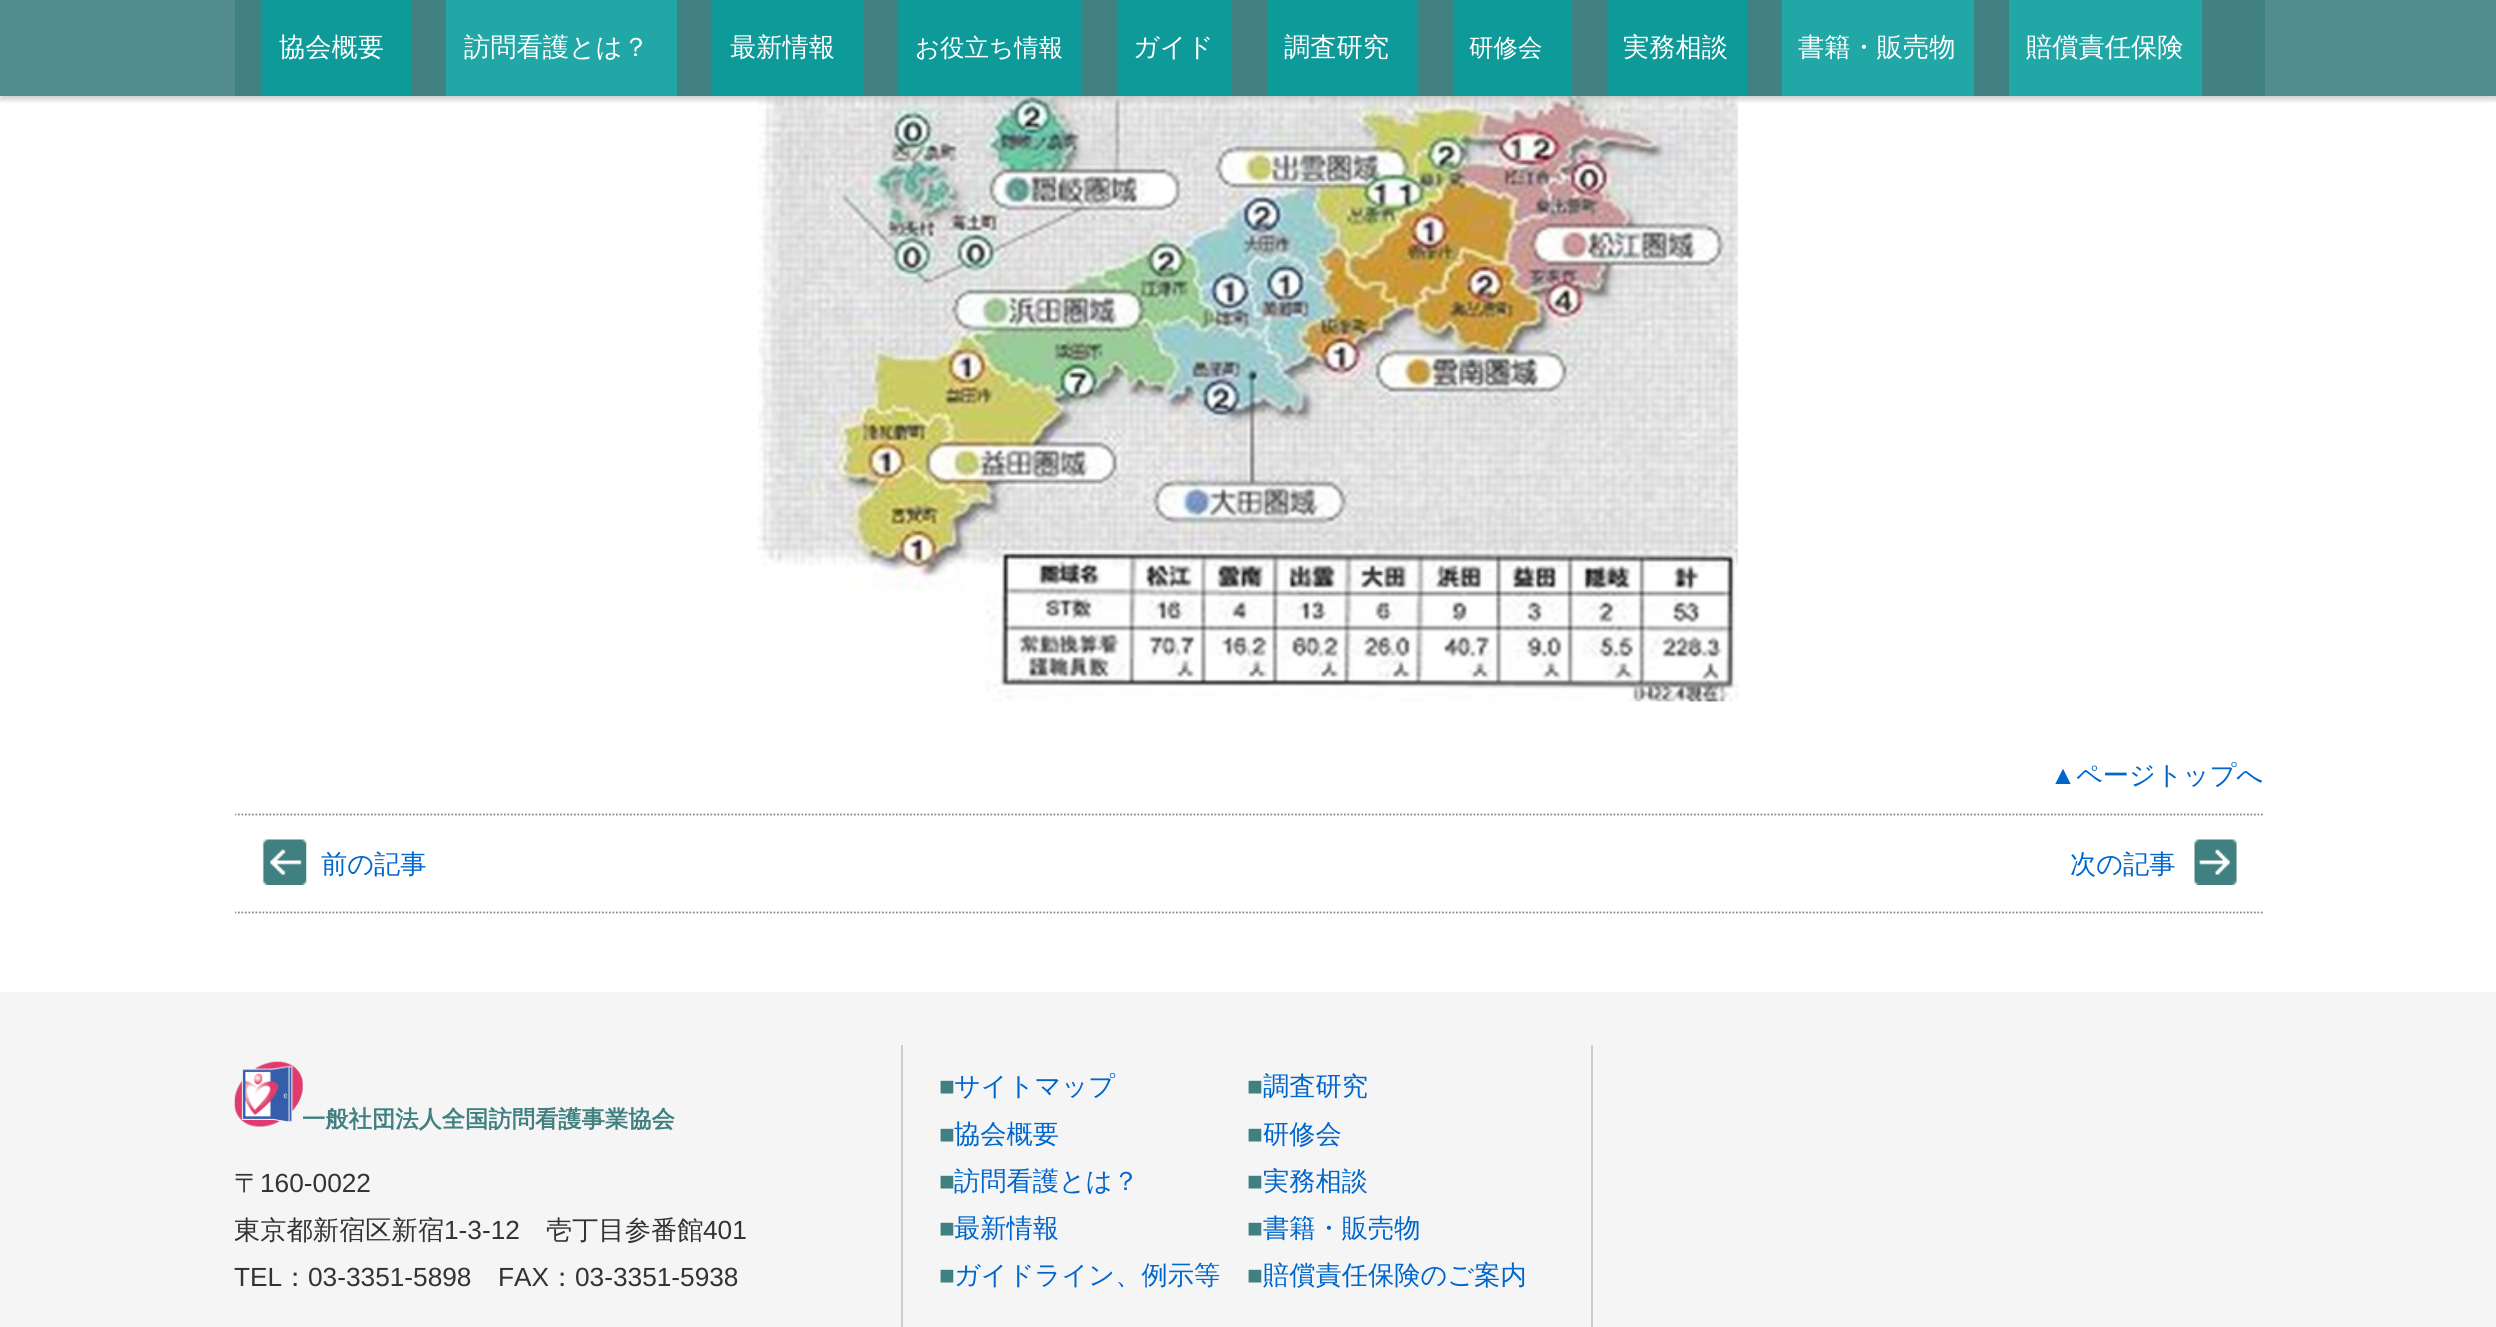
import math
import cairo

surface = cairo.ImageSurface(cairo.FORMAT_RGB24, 2496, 1327)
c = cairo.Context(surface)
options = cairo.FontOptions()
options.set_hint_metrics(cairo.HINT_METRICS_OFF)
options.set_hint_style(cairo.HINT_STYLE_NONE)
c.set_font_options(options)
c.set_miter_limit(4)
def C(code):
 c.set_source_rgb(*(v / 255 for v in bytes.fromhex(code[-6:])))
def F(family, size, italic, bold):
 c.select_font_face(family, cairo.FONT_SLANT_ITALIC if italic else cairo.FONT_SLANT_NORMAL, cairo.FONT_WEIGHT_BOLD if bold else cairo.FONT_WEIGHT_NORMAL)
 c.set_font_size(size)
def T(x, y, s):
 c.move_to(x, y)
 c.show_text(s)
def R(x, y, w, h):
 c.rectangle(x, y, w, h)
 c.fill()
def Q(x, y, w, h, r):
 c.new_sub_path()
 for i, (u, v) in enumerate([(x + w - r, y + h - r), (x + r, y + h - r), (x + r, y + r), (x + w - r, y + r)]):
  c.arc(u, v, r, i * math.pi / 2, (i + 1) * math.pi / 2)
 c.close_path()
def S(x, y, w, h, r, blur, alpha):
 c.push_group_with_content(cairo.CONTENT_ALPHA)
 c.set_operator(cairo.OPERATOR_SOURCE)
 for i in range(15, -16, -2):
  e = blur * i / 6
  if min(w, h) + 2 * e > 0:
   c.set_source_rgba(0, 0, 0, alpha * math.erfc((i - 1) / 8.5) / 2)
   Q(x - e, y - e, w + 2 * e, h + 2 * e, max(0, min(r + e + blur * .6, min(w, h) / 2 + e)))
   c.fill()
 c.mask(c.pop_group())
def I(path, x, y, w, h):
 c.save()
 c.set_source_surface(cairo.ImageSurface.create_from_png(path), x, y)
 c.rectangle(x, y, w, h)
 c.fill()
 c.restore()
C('ffffff')
c.paint()
I('1.png',758,87,981,615)
c.set_source_rgba(0.251,0.502,0.502,0.9)
R(0,0,2496,96)
c.save()
c.rectangle(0,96,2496,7)
c.clip()
C('000000')
S(0,4,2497,96,0,2.5,.18)
c.restore()
R(235,0,2030,96)
C('0f9a9a')
R(261,0,150,96)
F('WenQuanYi Zen Hei Medium',26.25,0,0)
C('ffffff')
T(279,56,'協会概要')
C('22a7a7')
R(446,0,231,96)
C('ffffff')
T(464,56,'訪問看護とは？')
C('0f9a9a')
R(712,0,151,96)
C('ffffff')
T(730,56,'最新情報')
C('0f9a9a')
R(898,0,184,96)
F('WenQuanYi Zen Hei Medium',24.5,0,0)
C('ffffff')
T(915,56,'お役立ち情報')
C('0f9a9a')
R(1117,0,115,96)
F('WenQuanYi Zen Hei Medium',26.25,0,0)
C('ffffff')
T(1133,56,'ガイド')
C('0f9a9a')
R(1267,0,151,96)
C('ffffff')
T(1284,56,'調査研究')
C('0f9a9a')
R(1453,0,119,96)
F('WenQuanYi Zen Hei Medium',24.5,0,0)
C('ffffff')
T(1469,56,'研修会')
C('0f9a9a')
R(1607,0,140,96)
F('WenQuanYi Zen Hei Medium',26.25,0,0)
C('ffffff')
T(1623,56,'実務相談')
C('22a7a7')
R(1782,0,192,96)
C('ffffff')
T(1798,56,'書籍・販売物')
C('22a7a7')
R(2009,0,193,96)
C('ffffff')
T(2026,56,'賠償責任保険')
F('Liberation Sans',26.25,0,0)
C('0066cc')
T(2050,784,'▲')
F('WenQuanYi Zen Hei Medium',26.25,0,0)
T(2076,784,'ページトップへ')
c.save()
c.rectangle(235,0,2030,914)
c.clip()
c.new_path()
c.move_to(234.5,814.5)
c.line_to(2264.5,814.5)
C('888888')
c.set_line_width(1.8)
c.set_dash([1.75,1.75])
c.stroke()
c.new_path()
c.move_to(234.5,912.5)
c.line_to(2264.5,912.5)
c.stroke()
c.restore()
I('2.png',262,839,45,46)
T(321,873,'前の記事')
I('3.png',2194,839,43,46)
T(2070,873,'次の記事')
C('f5f5f5')
R(0,992,2496,335)
C('cccccc')
R(901,1045,2,282)
I('4.png',234,1061,69,66)
F('WenQuanYi Zen Hei',23.3,0,1)
C('408080')
T(302,1127,'一般社団法人全国訪問看護事業協会')
F('WenQuanYi Zen Hei Medium',26.25,0,0)
C('333333')
T(234,1192,'〒')
F('Liberation Sans',26.25,0,0)
T(260,1192,'160-0022')
c.save()
c.rectangle(235,1141,631,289)
c.clip()
F('WenQuanYi Zen Hei Medium',26.25,0,0)
T(234,1239,'東京都新宿区新宿')
c.restore()
T(444,1239,'1-3-12')
F('WenQuanYi Zen Hei Medium',26.25,0,0)
T(546,1239,'壱丁目参番館')
F('Liberation Sans',26.25,0,0)
T(703,1239,'401')
T(234,1286,'TEL')
F('WenQuanYi Zen Hei Medium',26.25,0,0)
T(282,1286,'：')
F('Liberation Sans',26.25,0,0)
T(308,1286,'03-3351-5898')
T(498,1286,'FAX')
F('WenQuanYi Zen Hei Medium',26.25,0,0)
T(549,1286,'：')
F('Liberation Sans',26.25,0,0)
T(575,1286,'03-3351-5938')
C('cccccc')
R(1591,1045,2,282)
C('408080')
T(939,1095,'■')
F('WenQuanYi Zen Hei Medium',26.25,0,0)
C('0066cc')
T(954,1095,'サイトマップ')
F('Liberation Sans',26.25,0,0)
C('408080')
T(939,1143,'■')
F('WenQuanYi Zen Hei Medium',26.25,0,0)
C('0066cc')
T(954,1143,'協会概要')
F('Liberation Sans',26.25,0,0)
C('408080')
T(939,1190,'■')
F('WenQuanYi Zen Hei Medium',26.25,0,0)
C('0066cc')
T(954,1190,'訪問看護とは？')
F('Liberation Sans',26.25,0,0)
C('408080')
T(939,1237,'■')
F('WenQuanYi Zen Hei Medium',26.25,0,0)
C('0066cc')
T(954,1237,'最新情報')
F('Liberation Sans',26.25,0,0)
C('408080')
T(939,1284,'■')
F('WenQuanYi Zen Hei Medium',26.25,0,0)
C('0066cc')
T(954,1284,'ガイドライン、例示等')
F('Liberation Sans',26.25,0,0)
C('408080')
T(1247,1095,'■')
F('WenQuanYi Zen Hei Medium',26.25,0,0)
C('0066cc')
T(1263,1095,'調査研究')
F('Liberation Sans',26.25,0,0)
C('408080')
T(1247,1143,'■')
F('WenQuanYi Zen Hei Medium',26.25,0,0)
C('0066cc')
T(1263,1143,'研修会')
F('Liberation Sans',26.25,0,0)
C('408080')
T(1247,1190,'■')
F('WenQuanYi Zen Hei Medium',26.25,0,0)
C('0066cc')
T(1263,1190,'実務相談')
F('Liberation Sans',26.25,0,0)
C('408080')
T(1247,1237,'■')
F('WenQuanYi Zen Hei Medium',26.25,0,0)
C('0066cc')
T(1263,1237,'書籍・販売物')
F('Liberation Sans',26.25,0,0)
C('408080')
T(1247,1284,'■')
F('WenQuanYi Zen Hei Medium',26.25,0,0)
C('0066cc')
T(1263,1284,'賠償責任保険のご案内')
surface.write_to_png('o.png')
